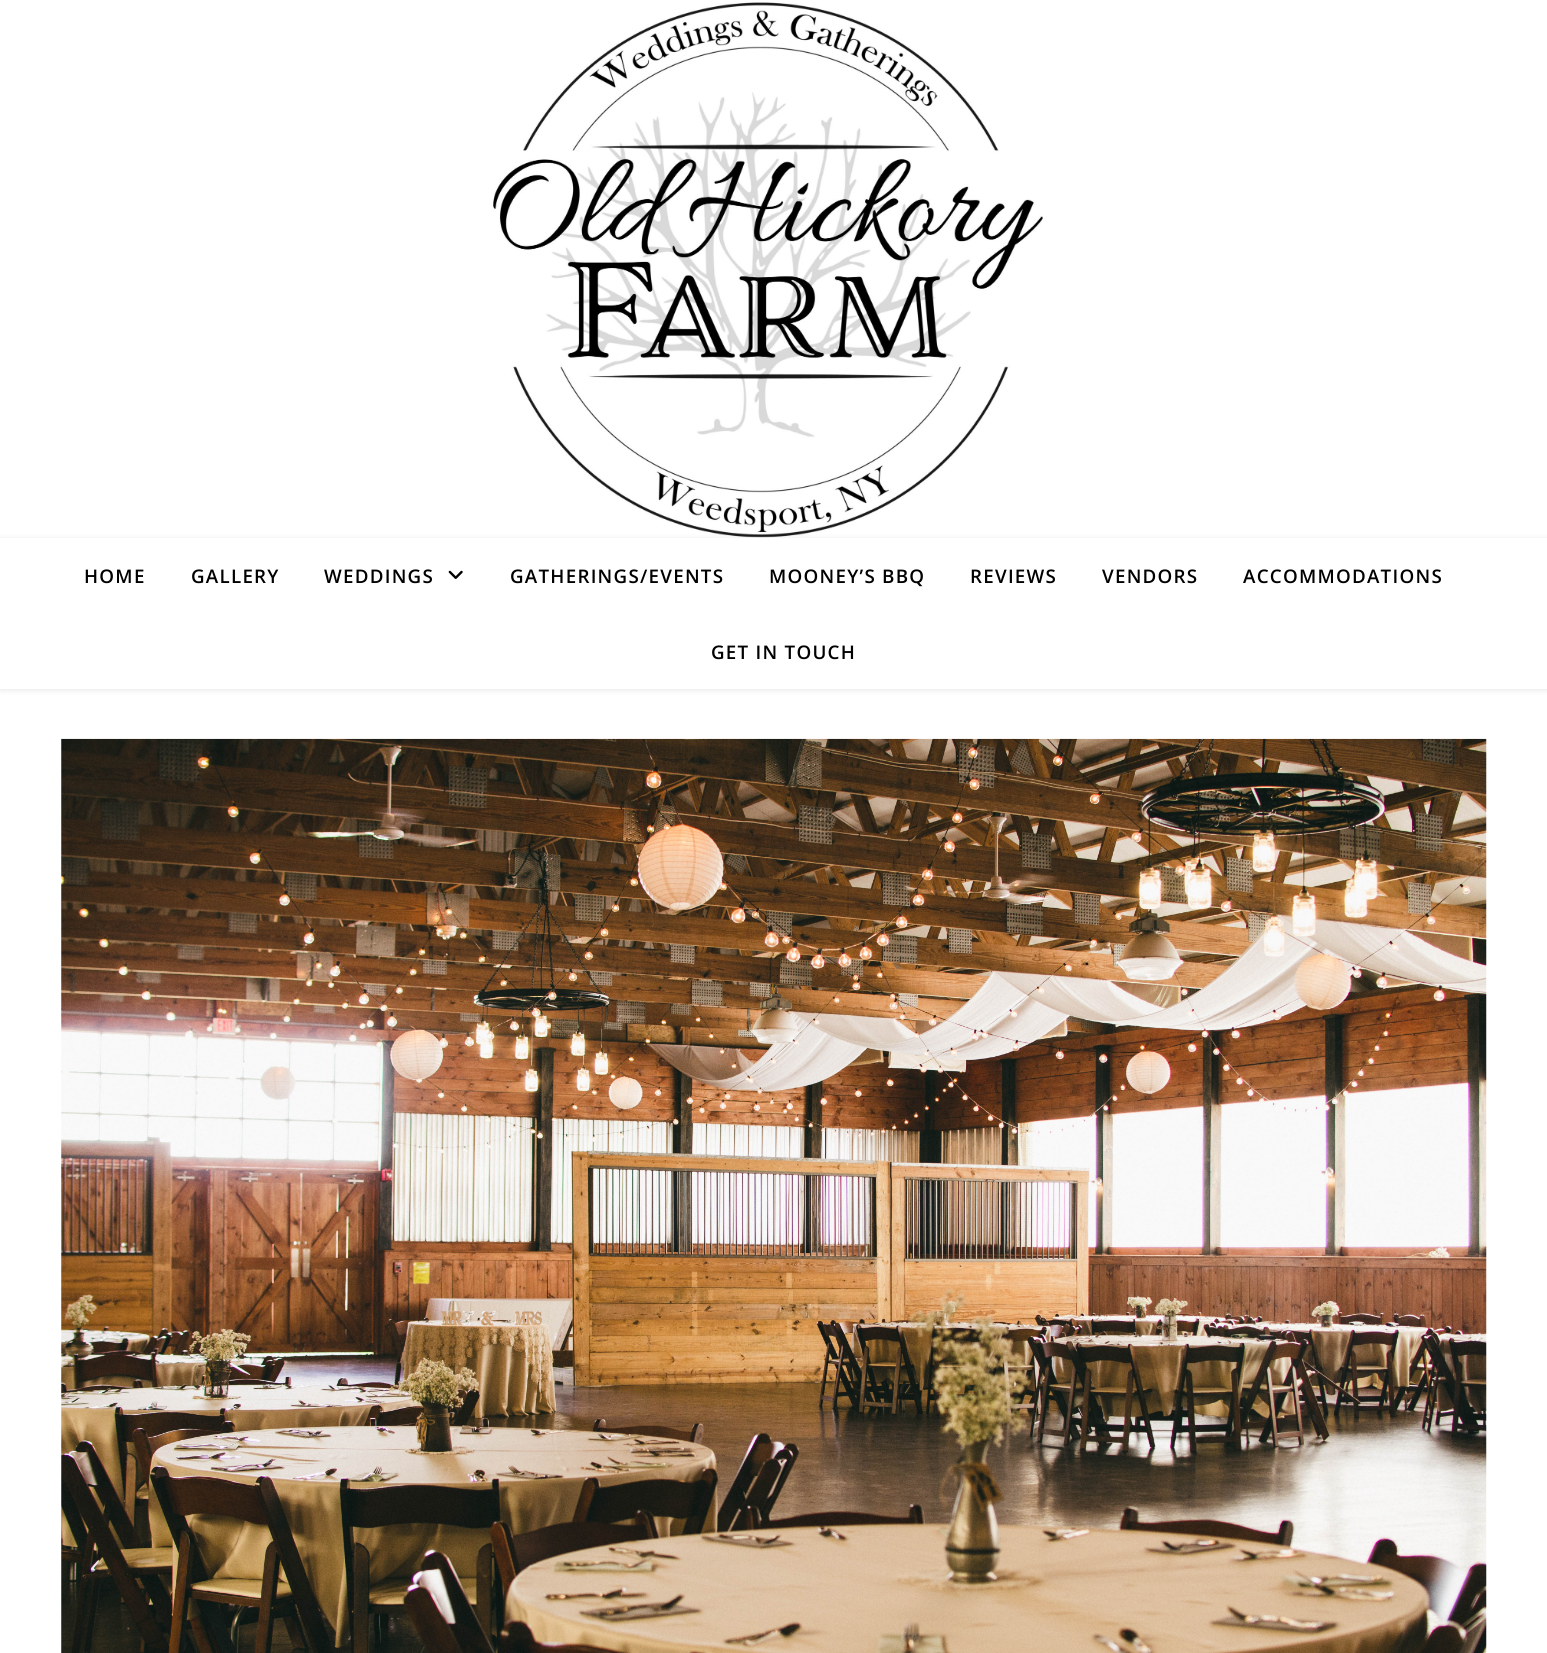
import math
import cairo

surface = cairo.ImageSurface(cairo.FORMAT_RGB24, 1547, 1653)
c = cairo.Context(surface)
options = cairo.FontOptions()
options.set_hint_metrics(cairo.HINT_METRICS_OFF)
options.set_hint_style(cairo.HINT_STYLE_NONE)
c.set_font_options(options)
c.set_miter_limit(4)
def C(code):
 c.set_source_rgb(*(v / 255 for v in bytes.fromhex(code[-6:])))
def F(family, size, italic, bold):
 c.select_font_face(family, cairo.FONT_SLANT_ITALIC if italic else cairo.FONT_SLANT_NORMAL, cairo.FONT_WEIGHT_BOLD if bold else cairo.FONT_WEIGHT_NORMAL)
 c.set_font_size(size)
def L(x, y, s, letter, word):
 c.move_to(x, y)
 for ch in s:
  c.show_text(ch)
  c.rel_move_to(letter + word * (ch == ' '), 0)
def R(x, y, w, h):
 c.rectangle(x, y, w, h)
 c.fill()
def Q(x, y, w, h, r):
 c.new_sub_path()
 for i, (u, v) in enumerate([(x + w - r, y + h - r), (x + r, y + h - r), (x + r, y + r), (x + w - r, y + r)]):
  c.arc(u, v, r, i * math.pi / 2, (i + 1) * math.pi / 2)
 c.close_path()
def S(x, y, w, h, r, blur, alpha):
 c.push_group_with_content(cairo.CONTENT_ALPHA)
 c.set_operator(cairo.OPERATOR_SOURCE)
 for i in range(15, -16, -2):
  e = blur * i / 6
  if min(w, h) + 2 * e > 0:
   c.set_source_rgba(0, 0, 0, alpha * math.erfc((i - 1) / 8.5) / 2)
   Q(x - e, y - e, w + 2 * e, h + 2 * e, max(0, min(r + e + blur * .6, min(w, h) / 2 + e)))
   c.fill()
 c.mask(c.pop_group())
def I(path, x, y, w, h):
 c.save()
 c.set_source_surface(cairo.ImageSurface.create_from_png(path), x, y)
 c.rectangle(x, y, w, h)
 c.fill()
 c.restore()
C('ffffff')
c.paint()
I('1.png',493,2,550,536)
C('000000')
S(0,539,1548,151,0,3,.1)
C('ffffff')
R(0,538,1547,151)
F('Open Sans SemiBold',18.75,0,0)
C('000000')
L(84,583,'HOME',1.25,0)
L(191,583,'GALLERY',1.25,0)
L(324,583,'WEDDINGS',1.25,0)
I('2.png',448,570,15,9)
L(510,583,'GATHERINGS/EVENTS',1.25,0)
L(769,583,'MOONEY’S BBQ',1.25,0)
L(970,583,'REVIEWS',1.25,0)
L(1102,583,'VENDORS',1.25,0)
L(1243,583,'ACCOMMODATIONS',1.25,0)
L(711,659,'GET IN TOUCH',1.25,0)
I('3.png',61,738,1426,915)
surface.write_to_png('o.png')
